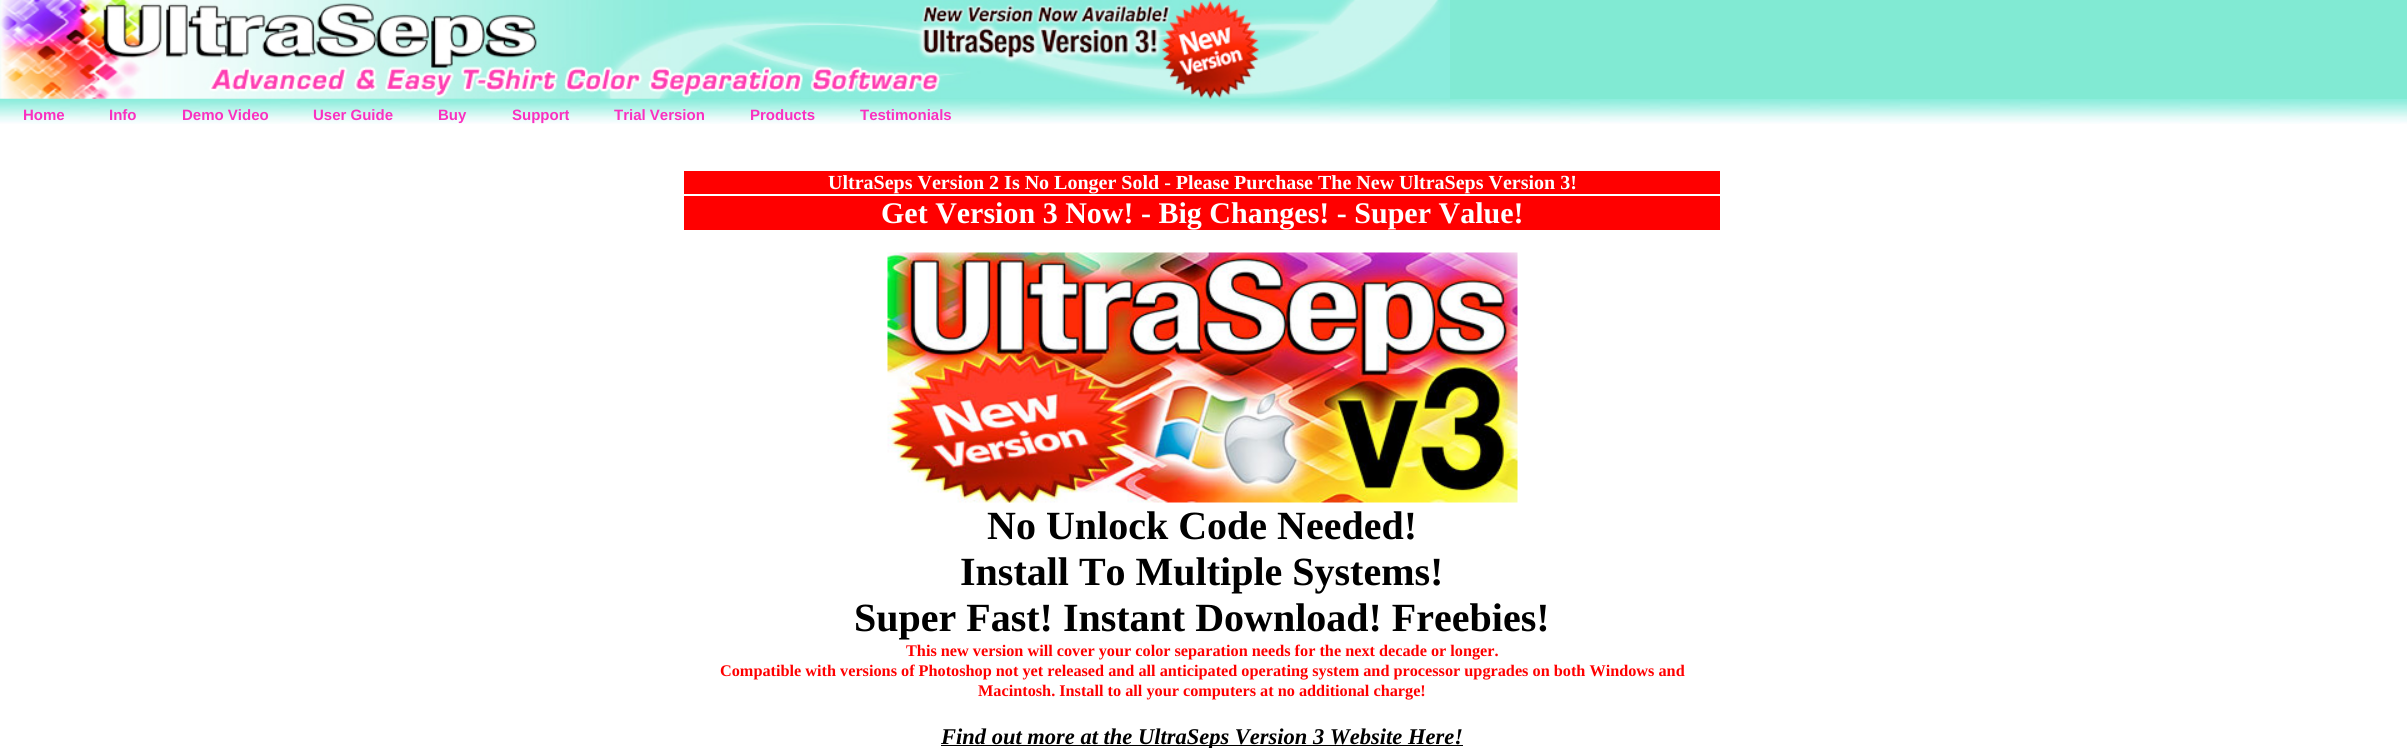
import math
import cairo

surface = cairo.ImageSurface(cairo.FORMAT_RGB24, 2407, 748)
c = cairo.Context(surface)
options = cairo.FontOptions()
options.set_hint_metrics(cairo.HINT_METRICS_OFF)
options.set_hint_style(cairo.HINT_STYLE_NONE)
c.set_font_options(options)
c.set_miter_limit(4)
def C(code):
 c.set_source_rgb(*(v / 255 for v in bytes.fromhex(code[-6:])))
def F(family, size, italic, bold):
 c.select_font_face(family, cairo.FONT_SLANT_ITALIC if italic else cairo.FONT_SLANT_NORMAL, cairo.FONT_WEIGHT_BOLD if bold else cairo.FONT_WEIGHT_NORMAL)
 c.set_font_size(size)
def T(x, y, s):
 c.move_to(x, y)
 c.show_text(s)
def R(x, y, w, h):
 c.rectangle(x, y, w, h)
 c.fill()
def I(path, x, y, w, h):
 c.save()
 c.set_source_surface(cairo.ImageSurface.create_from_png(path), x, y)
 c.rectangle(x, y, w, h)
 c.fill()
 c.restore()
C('ffffff')
c.paint()
C('81ead3')
R(0,0,2407,99)
I('1.png',0,0,1450,99)
I('2.png',0,99,2407,25)
F('Liberation Sans',15,0,1)
C('fa30c0')
T(23,120,'Home')
T(109,120,'Info')
T(182,120,'Demo Video')
T(313,120,'User Guide')
T(438,120,'Buy')
T(512,120,'Support')
T(614,120,'Trial Version')
T(750,120,'Products')
T(860,120,'Testimonials')
C('ff0000')
R(684,171,1036,23)
F('Liberation Serif',20,0,1)
C('ffffff')
T(828,189,'UltraSeps Version 2 Is No Longer Sold - Please Purchase The New UltraSeps Version 3!')
C('ff0000')
R(684,196,1036,34)
F('Liberation Serif',30,0,1)
C('ffffff')
T(881,223,'Get Version 3 Now! - Big Changes! - Super Value!')
I('3.png',887,252,631,251)
F('Liberation Serif',40,0,1)
C('000000')
T(987,539,'No Unlock Code Needed!')
T(960,585,'Install To Multiple Systems!')
T(854,631,'Super Fast! Instant Download! Freebies!')
F('Liberation Serif',16.25,0,1)
C('ff0000')
T(906,656,'This new version will cover your color separation needs for the next decade or longer.')
T(720,676,'Compatible with versions of Photoshop not yet released and all anticipated operating system and processor upgrades on both Windows and')
T(978,696,'Macintosh. Install to all your computers at no additional charge!')
C('000000')
R(941,745,522,1)
F('Liberation Serif',22.5,1,1)
T(941,744,'Find out more at the UltraSeps Version 3 Website Here!')
surface.write_to_png('o.png')
